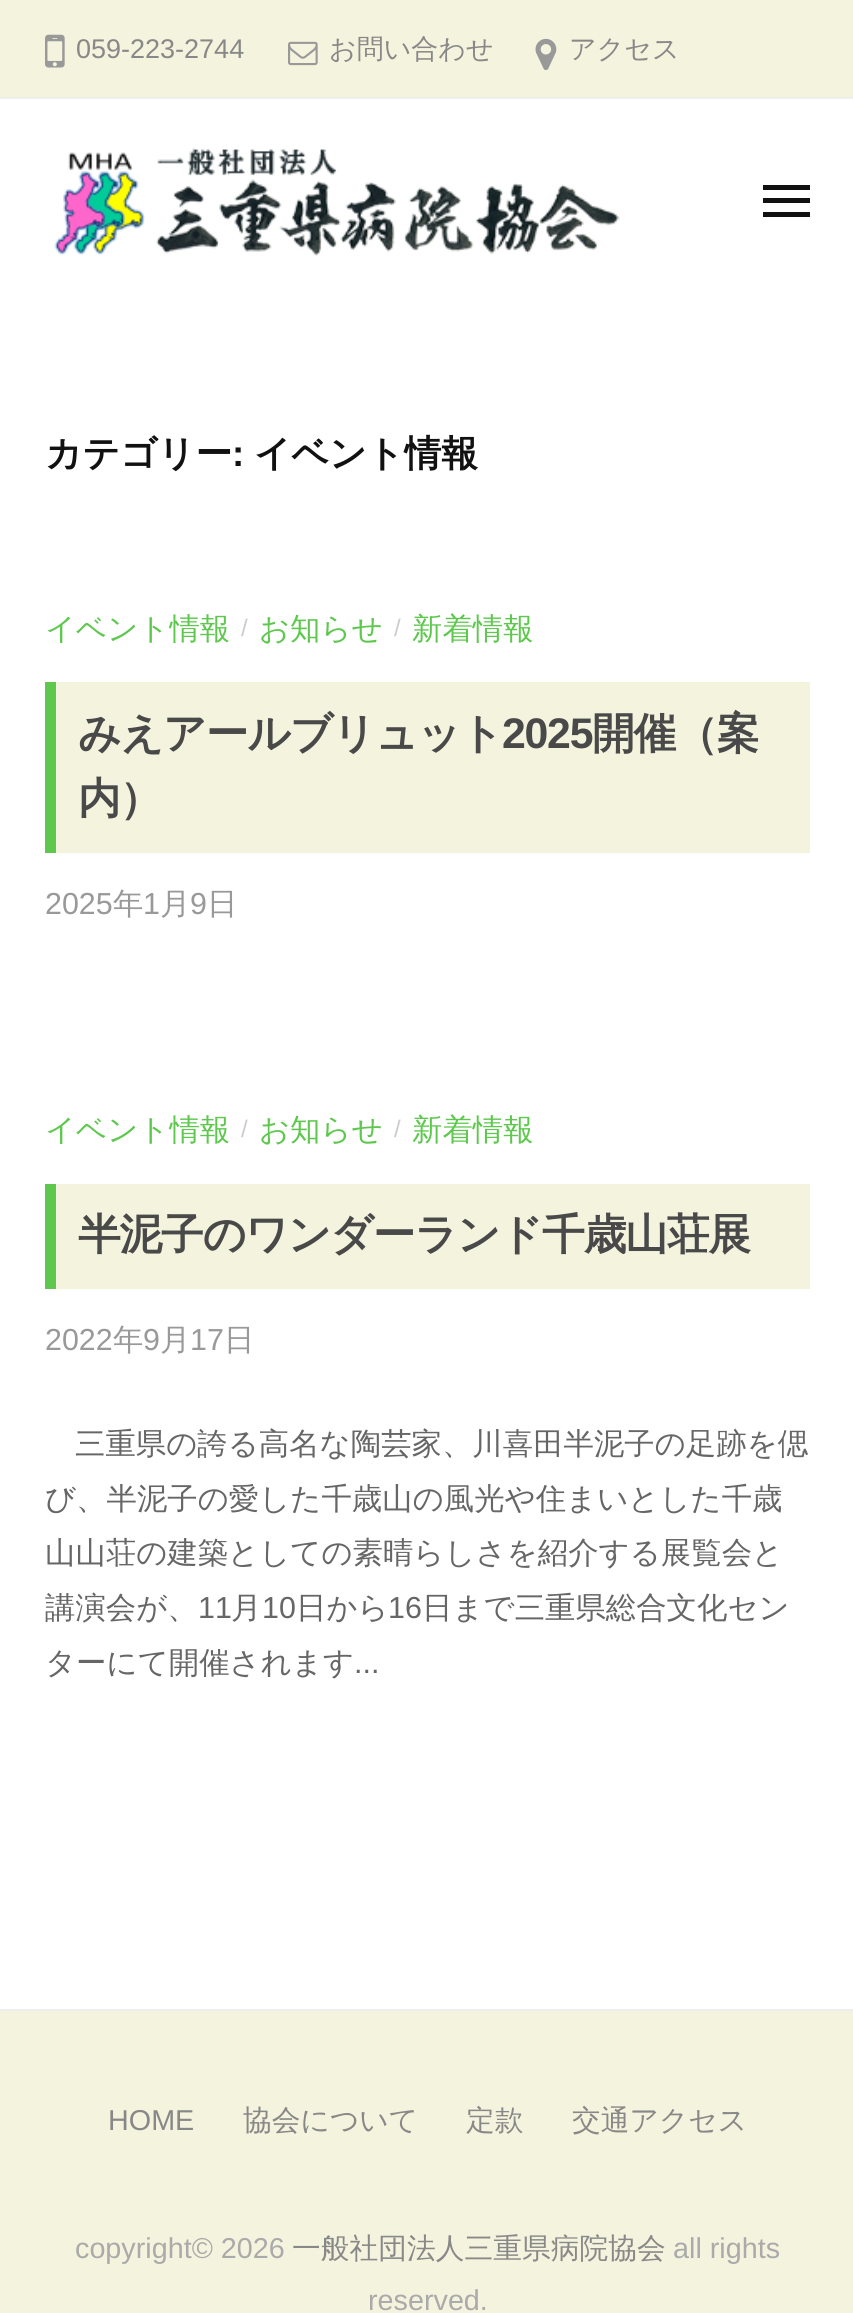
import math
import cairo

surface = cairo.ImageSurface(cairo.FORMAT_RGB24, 853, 2313)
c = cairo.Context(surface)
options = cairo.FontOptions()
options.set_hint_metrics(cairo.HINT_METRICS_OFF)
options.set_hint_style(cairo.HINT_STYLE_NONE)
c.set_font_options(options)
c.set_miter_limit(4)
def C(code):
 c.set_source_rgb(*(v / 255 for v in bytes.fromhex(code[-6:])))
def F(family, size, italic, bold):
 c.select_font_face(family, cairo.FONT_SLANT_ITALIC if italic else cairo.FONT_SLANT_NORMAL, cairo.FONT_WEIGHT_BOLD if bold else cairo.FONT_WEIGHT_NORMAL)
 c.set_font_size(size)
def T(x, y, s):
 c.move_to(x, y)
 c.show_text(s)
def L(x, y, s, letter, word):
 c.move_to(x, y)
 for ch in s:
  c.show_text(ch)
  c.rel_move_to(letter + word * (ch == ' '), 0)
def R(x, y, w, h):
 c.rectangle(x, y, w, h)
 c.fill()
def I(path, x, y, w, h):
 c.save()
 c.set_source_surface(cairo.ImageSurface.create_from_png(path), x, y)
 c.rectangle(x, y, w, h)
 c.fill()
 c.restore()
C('ffffff')
c.paint()
C('f4f4de')
R(0,0,853,97)
C('eeeeee')
R(0,97,853,2)
I('1.png',45,34,20,34)
F('Liberation Sans',27,0,0)
C('888888')
T(76,58,'059-223-2744')
I('2.png',288,41,30,25)
F('WenQuanYi Zen Hei Medium',27,0,0)
T(329,58,'お問い合わせ')
I('3.png',535,38,22,32)
T(569,58,'アクセス')
I('4.png',54,148,566,109)
C('111111')
R(763,198,47,5)
R(763,185,47,5)
R(763,212,47,5)
F('WenQuanYi Zen Hei',36.75,0,1)
T(45,466,'カテゴリー')
F('Liberation Sans',36.75,0,1)
T(232,466,':')
F('WenQuanYi Zen Hei',36.75,0,1)
T(254,466,'イベント情報')
F('WenQuanYi Zen Hei Medium',30.4,0,0)
C('5ec84e')
T(45,639,'イベント情報')
F('Liberation Sans',24,0,0)
C('cccccc')
T(241,636,'/')
F('WenQuanYi Zen Hei Medium',30.4,0,0)
C('5ec84e')
T(259,639,'お知らせ')
F('Liberation Sans',24,0,0)
C('cccccc')
T(394,636,'/')
F('WenQuanYi Zen Hei Medium',30.4,0,0)
C('5ec84e')
T(412,639,'新着情報')
C('f4f4de')
R(56,682,754,171)
C('5ec84e')
R(45,682,11,171)
F('WenQuanYi Zen Hei',42.8,0,1)
C('494949')
L(78,748,'みえアールブリュット',-1.25,0)
F('Liberation Sans',42.8,0,1)
L(502,748,'2025',-1.25,0)
F('WenQuanYi Zen Hei',42.8,0,1)
L(592,748,'開催（案',-1.25,0)
L(78,813,'内）',-1.25,0)
F('Liberation Sans',30.4,0,0)
C('999999')
T(45,914,'2025')
F('WenQuanYi Zen Hei Medium',30.4,0,0)
T(113,914,'年')
F('Liberation Sans',30.4,0,0)
T(143,914,'1')
F('WenQuanYi Zen Hei Medium',30.4,0,0)
T(160,914,'月')
F('Liberation Sans',30.4,0,0)
T(190,914,'9')
F('WenQuanYi Zen Hei Medium',30.4,0,0)
T(207,914,'日')
C('5ec84e')
T(45,1140,'イベント情報')
F('Liberation Sans',24,0,0)
C('cccccc')
T(241,1137,'/')
F('WenQuanYi Zen Hei Medium',30.4,0,0)
C('5ec84e')
T(259,1140,'お知らせ')
F('Liberation Sans',24,0,0)
C('cccccc')
T(394,1137,'/')
F('WenQuanYi Zen Hei Medium',30.4,0,0)
C('5ec84e')
T(412,1140,'新着情報')
C('f4f4de')
R(56,1184,754,105)
C('5ec84e')
R(45,1184,11,105)
F('WenQuanYi Zen Hei',42.8,0,1)
C('494949')
L(78,1249,'半泥子のワンダーランド千歳山荘展',-1.25,0)
F('Liberation Sans',30.4,0,0)
C('999999')
T(45,1350,'2022')
F('WenQuanYi Zen Hei Medium',30.4,0,0)
T(113,1350,'年')
F('Liberation Sans',30.4,0,0)
T(143,1350,'9')
F('WenQuanYi Zen Hei Medium',30.4,0,0)
T(160,1350,'月')
F('Liberation Sans',30.4,0,0)
T(190,1350,'17')
F('WenQuanYi Zen Hei Medium',30.4,0,0)
T(224,1350,'日')
C('666666')
T(75,1454,'三重県の誇る高名な陶芸家、川喜田半泥子の足跡を偲')
T(45,1509,'び、半泥子の愛した千歳山の風光や住まいとした千歳')
T(45,1563,'山山荘の建築としての素晴らしさを紹介する展覧会と')
T(45,1618,'講演会が、')
F('Liberation Sans',30.4,0,0)
T(198,1618,'11')
F('WenQuanYi Zen Hei Medium',30.4,0,0)
T(231,1618,'月')
F('Liberation Sans',30.4,0,0)
T(262,1618,'10')
F('WenQuanYi Zen Hei Medium',30.4,0,0)
T(296,1618,'日から')
F('Liberation Sans',30.4,0,0)
T(388,1618,'16')
F('WenQuanYi Zen Hei Medium',30.4,0,0)
T(422,1618,'日まで三重県総合文化セン')
T(45,1673,'ターにて開催されます')
F('Liberation Sans',30.4,0,0)
T(354,1673,'...')
C('f4f4de')
R(0,2011,853,302)
C('eeeeee')
R(0,2009,853,2)
F('Liberation Sans',28.75,0,0)
C('888888')
T(108,2130,'HOME')
F('WenQuanYi Zen Hei Medium',28.75,0,0)
T(243,2130,'協会について')
T(466,2130,'定款')
T(572,2130,'交通アクセス')
F('Liberation Sans',28.75,0,0)
C('aaaaaa')
T(75,2258,'copyright© 2026')
F('WenQuanYi Zen Hei Medium',28.75,0,0)
C('888888')
T(292,2258,'一般社団法人三重県病院協会')
F('Liberation Sans',28.75,0,0)
C('aaaaaa')
T(673,2258,'all rights')
T(368,2310,'reserved.')
surface.write_to_png('o.png')
